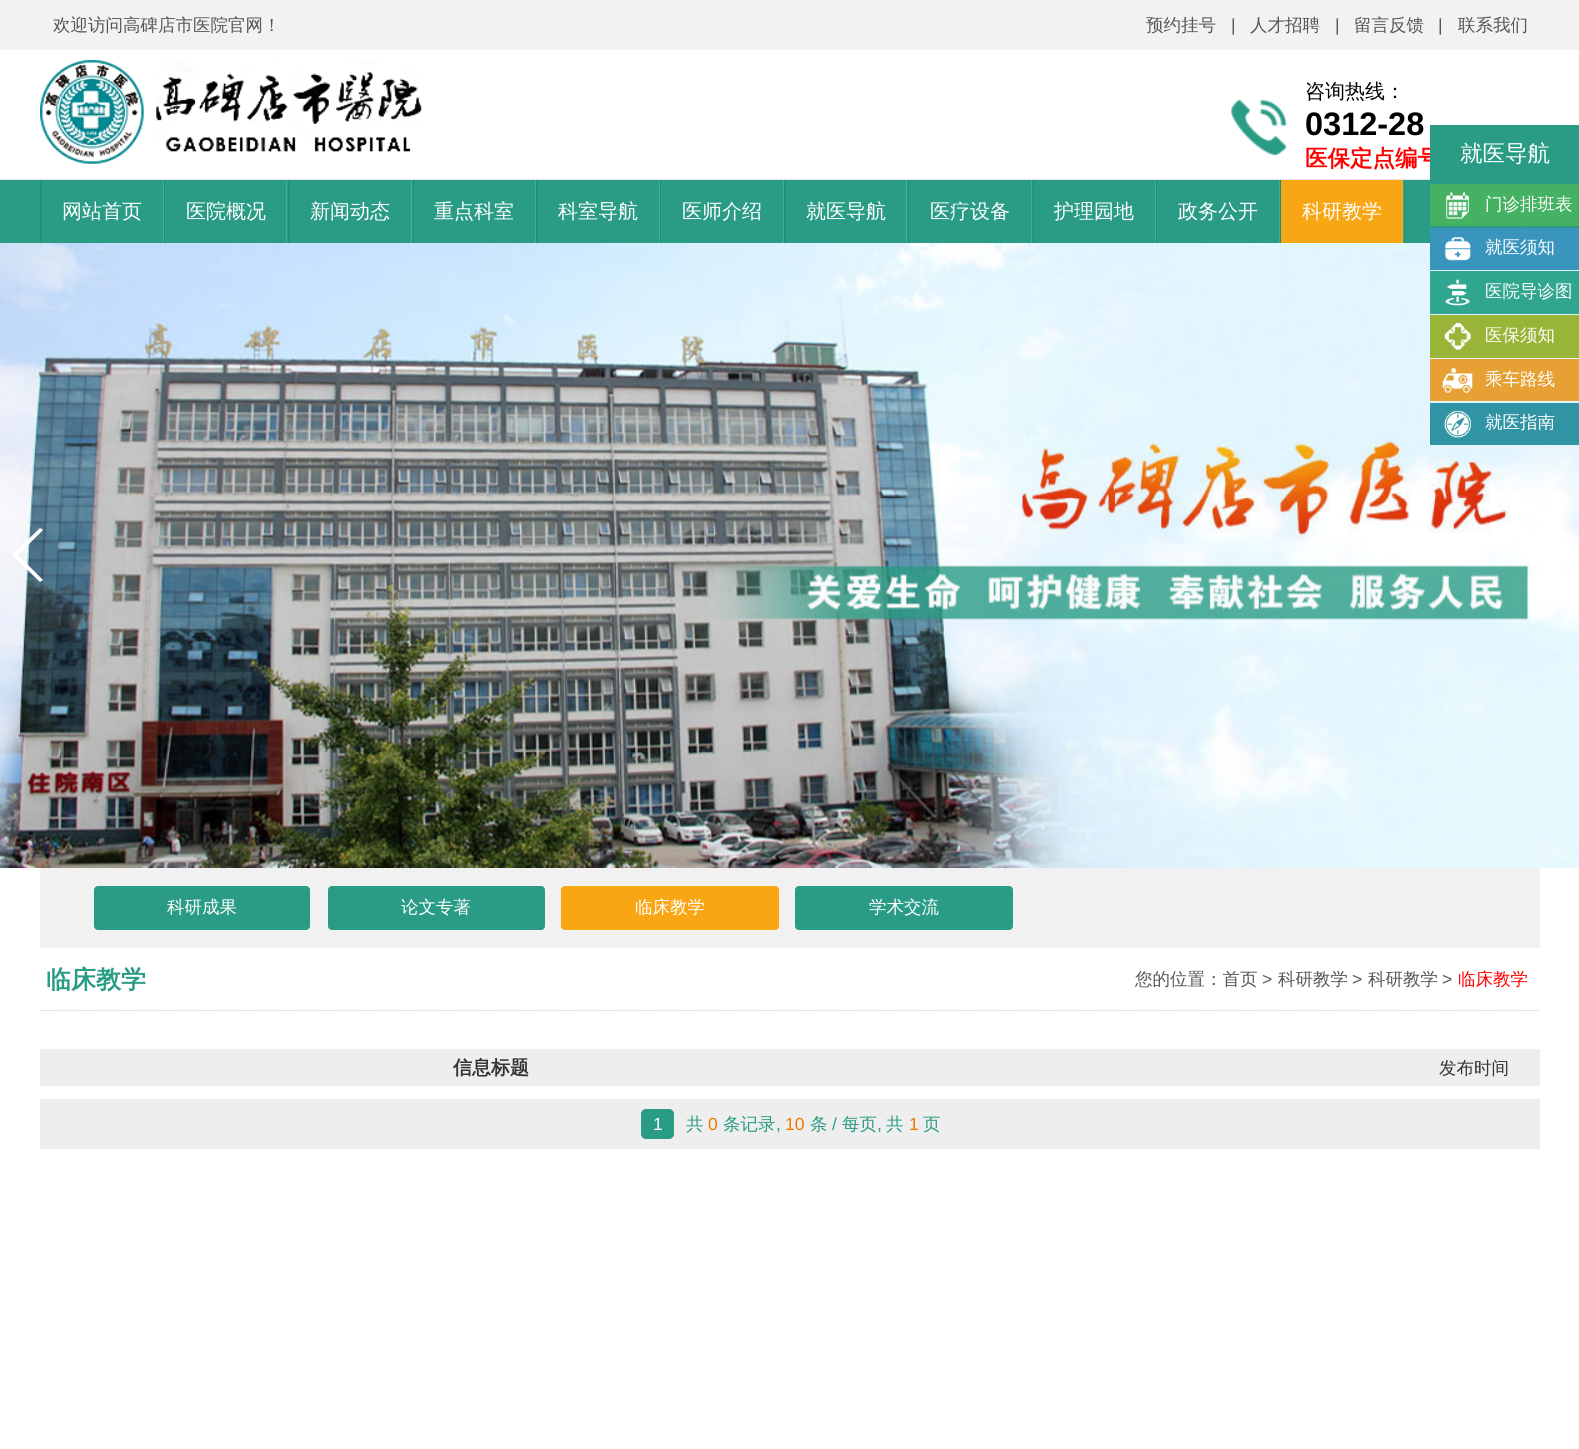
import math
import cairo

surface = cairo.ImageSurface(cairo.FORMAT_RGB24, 1579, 1449)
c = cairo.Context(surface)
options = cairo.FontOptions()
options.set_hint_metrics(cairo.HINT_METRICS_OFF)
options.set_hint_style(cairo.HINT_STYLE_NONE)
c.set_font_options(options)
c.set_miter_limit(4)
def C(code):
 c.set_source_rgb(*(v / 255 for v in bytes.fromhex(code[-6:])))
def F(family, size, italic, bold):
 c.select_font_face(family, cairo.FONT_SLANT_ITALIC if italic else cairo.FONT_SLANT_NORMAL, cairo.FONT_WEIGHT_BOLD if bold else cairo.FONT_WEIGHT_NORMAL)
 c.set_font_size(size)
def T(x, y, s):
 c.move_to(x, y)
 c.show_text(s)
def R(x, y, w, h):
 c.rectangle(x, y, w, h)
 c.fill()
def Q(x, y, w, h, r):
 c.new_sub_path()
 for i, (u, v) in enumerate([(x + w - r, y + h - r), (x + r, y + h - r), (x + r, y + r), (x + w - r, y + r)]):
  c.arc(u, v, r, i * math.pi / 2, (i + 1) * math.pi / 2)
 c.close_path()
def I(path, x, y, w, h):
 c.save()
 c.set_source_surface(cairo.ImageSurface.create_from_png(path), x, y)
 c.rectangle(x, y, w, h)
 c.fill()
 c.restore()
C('ffffff')
c.paint()
C('f2f2f2')
R(0,0,1579,50)
F('WenQuanYi Zen Hei Medium',17.5,0,0)
C('555555')
T(53,31,'欢迎访问高碑店市医院官网！')
T(1146,31,'预约挂号')
F('Liberation Sans',17.5,0,0)
T(1231,31,'|')
F('WenQuanYi Zen Hei Medium',17.5,0,0)
T(1250,31,'人才招聘')
F('Liberation Sans',17.5,0,0)
T(1335,31,'|')
F('WenQuanYi Zen Hei Medium',17.5,0,0)
T(1354,31,'留言反馈')
F('Liberation Sans',17.5,0,0)
T(1438,31,'|')
F('WenQuanYi Zen Hei Medium',17.5,0,0)
T(1458,31,'联系我们')
C('e5e5e5')
R(0,179,1430,1)
I('1.png',40,59,382,105)
I('2.png',1231,99,56,57)
F('WenQuanYi Zen Hei Medium',20,0,0)
C('000000')
T(1305,98,'咨询热线：')
F('Liberation Sans',32.5,0,1)
T(1305,135,'0312-28')
F('WenQuanYi Zen Hei',22.5,0,1)
C('ff0000')
T(1305,166,'医保定点编号')
C('2a9c85')
R(0,180,1579,63)
C('34b49a')
R(163,180,1,63)
C('198f77')
R(40,180,1,63)
F('WenQuanYi Zen Hei Medium',20,0,0)
C('ffffff')
T(62,218,'网站首页')
C('34b49a')
R(286,180,1,63)
C('198f77')
R(164,180,1,63)
C('ffffff')
T(186,218,'医院概况')
C('34b49a')
R(411,180,1,63)
C('198f77')
R(288,180,1,63)
C('ffffff')
T(310,218,'新闻动态')
C('34b49a')
R(535,180,1,63)
C('198f77')
R(413,180,1,63)
C('ffffff')
T(434,218,'重点科室')
C('34b49a')
R(659,180,1,63)
C('198f77')
R(536,180,1,63)
C('ffffff')
T(558,218,'科室导航')
C('34b49a')
R(783,180,1,63)
C('198f77')
R(660,180,1,63)
C('ffffff')
T(682,218,'医师介绍')
C('34b49a')
R(906,180,1,63)
C('198f77')
R(784,180,1,63)
C('ffffff')
T(806,218,'就医导航')
C('34b49a')
R(1031,180,1,63)
C('198f77')
R(908,180,1,63)
C('ffffff')
T(930,218,'医疗设备')
C('34b49a')
R(1155,180,1,63)
C('198f77')
R(1033,180,1,63)
C('ffffff')
T(1054,218,'护理园地')
C('34b49a')
R(1279,180,1,63)
C('198f77')
R(1156,180,1,63)
C('ffffff')
T(1178,218,'政务公开')
C('f9a615')
R(1281,180,122,63)
C('34b49a')
R(1403,180,1,63)
C('198f77')
R(1280,180,1,63)
C('ffffff')
T(1302,218,'科研教学')
C('34b49a')
R(1526,180,1,48)
C('198f77')
R(1404,180,1,63)
C('2a9c85')
R(1430,125,149,58)
F('WenQuanYi Zen Hei Medium',22.5,0,0)
C('ffffff')
T(1460,161,'就医导航')
C('45b263')
R(1430,184,149,42)
I('3.png',1446,192,23,27)
F('WenQuanYi Zen Hei Medium',17.5,0,0)
C('ffffff')
T(1485,210,'门诊排班表')
I('9.png',0,243,1579,625)
C('3995be')
R(1430,228,149,42)
I('4.png',1445,237,26,24)
C('ffffff')
T(1485,253,'就医须知')
C('30a68e')
R(1430,271,149,43)
I('5.png',1445,279,25,27)
C('ffffff')
T(1485,297,'医院导诊图')
C('98b537')
R(1430,315,149,43)
I('6.png',1444,322,27,28)
C('ffffff')
T(1485,341,'医保须知')
C('e6a034')
R(1430,359,149,42)
I('7.png',1442,367,31,26)
C('ffffff')
T(1485,385,'乘车路线')
C('3094a4')
R(1430,403,149,42)
I('8.png',1444,410,27,28)
C('ffffff')
T(1485,428,'就医指南')
c.new_path()
c.move_to(12,555)
c.line_to(40,528)
c.line_to(43,530)
c.line_to(18,555)
c.line_to(43,580)
c.line_to(40,582)
c.close_path()
c.fill()
C('f1f1f1')
R(40,868,1500,80)
C('2a9c85')
Q(94,886,216,44,4)
c.fill()
C('ffffff')
T(167,913,'科研成果')
C('2a9c85')
Q(328,886,217,44,4)
c.fill()
C('ffffff')
T(401,913,'论文专著')
C('f9a615')
Q(561,886,218,44,4)
c.fill()
C('ffffff')
T(635,913,'临床教学')
C('2a9c85')
Q(795,886,218,44,4)
c.fill()
C('ffffff')
T(869,913,'学术交流')
F('WenQuanYi Zen Hei',25,0,1)
C('2a9c85')
T(46,988,'临床教学')
F('WenQuanYi Zen Hei Medium',17.5,0,0)
C('555555')
T(1135,985,'您的位置：首页')
F('Liberation Sans',17.5,0,0)
T(1262,985,'>')
F('WenQuanYi Zen Hei Medium',17.5,0,0)
T(1278,985,'科研教学')
F('Liberation Sans',17.5,0,0)
T(1352,985,'>')
F('WenQuanYi Zen Hei Medium',17.5,0,0)
T(1368,985,'科研教学')
F('Liberation Sans',17.5,0,0)
T(1442,985,'>')
F('WenQuanYi Zen Hei Medium',17.5,0,0)
C('ff0000')
T(1458,985,'临床教学')
c.new_path()
c.move_to(40,1010.5)
c.line_to(1540,1010.5)
C('cccccc')
c.set_line_width(1.2)
c.set_dash([1.25,1.25])
c.stroke()
C('eeeeee')
R(40,1049,1500,37)
F('WenQuanYi Zen Hei',19,0,1)
C('333333')
T(453,1074,'信息标题')
F('WenQuanYi Zen Hei Medium',17.5,0,0)
T(1439,1074,'发布时间')
C('eeeeee')
R(40,1099,1500,50)
C('2a9c85')
Q(641.5,1109.5,32,29,4.5)
c.fill_preserve()
c.set_line_width(1)
c.set_dash([])
c.stroke()
F('Liberation Sans',17.5,0,0)
C('ffffff')
T(653,1130,'1')
F('WenQuanYi Zen Hei Medium',17.5,0,0)
C('2a9c85')
T(686,1130,'共')
F('Liberation Sans',17.5,0,0)
C('ee7700')
T(708,1130,'0')
F('WenQuanYi Zen Hei Medium',17.5,0,0)
C('2a9c85')
T(723,1130,'条记录')
F('Liberation Sans',17.5,0,0)
C('ee7700')
T(785,1130,'10')
F('WenQuanYi Zen Hei Medium',17.5,0,0)
C('2a9c85')
T(810,1130,'条')
F('Liberation Sans',17.5,0,0)
T(832,1130,'/')
F('WenQuanYi Zen Hei Medium',17.5,0,0)
T(842,1130,'每页')
T(886,1130,'共')
F('Liberation Sans',17.5,0,0)
C('ee7700')
T(909,1130,'1')
F('WenQuanYi Zen Hei Medium',17.5,0,0)
C('2a9c85')
T(923,1130,'页')
F('Liberation Sans',17.5,0,0)
T(776,1130,',')
T(877,1130,',')
surface.write_to_png('o.png')
